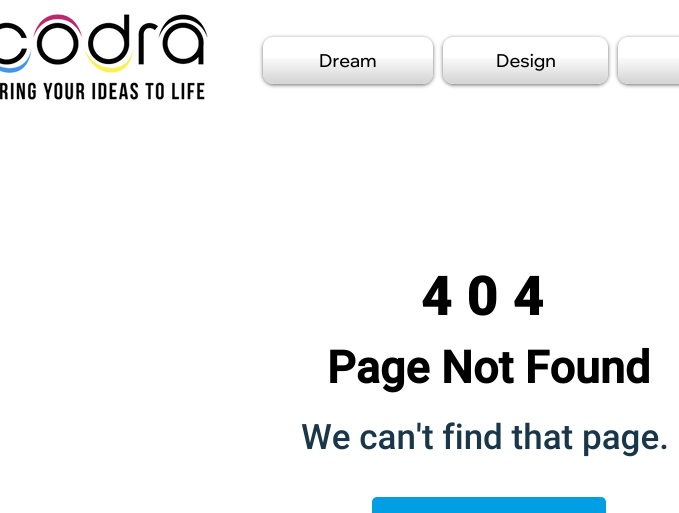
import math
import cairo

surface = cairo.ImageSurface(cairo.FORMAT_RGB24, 679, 513)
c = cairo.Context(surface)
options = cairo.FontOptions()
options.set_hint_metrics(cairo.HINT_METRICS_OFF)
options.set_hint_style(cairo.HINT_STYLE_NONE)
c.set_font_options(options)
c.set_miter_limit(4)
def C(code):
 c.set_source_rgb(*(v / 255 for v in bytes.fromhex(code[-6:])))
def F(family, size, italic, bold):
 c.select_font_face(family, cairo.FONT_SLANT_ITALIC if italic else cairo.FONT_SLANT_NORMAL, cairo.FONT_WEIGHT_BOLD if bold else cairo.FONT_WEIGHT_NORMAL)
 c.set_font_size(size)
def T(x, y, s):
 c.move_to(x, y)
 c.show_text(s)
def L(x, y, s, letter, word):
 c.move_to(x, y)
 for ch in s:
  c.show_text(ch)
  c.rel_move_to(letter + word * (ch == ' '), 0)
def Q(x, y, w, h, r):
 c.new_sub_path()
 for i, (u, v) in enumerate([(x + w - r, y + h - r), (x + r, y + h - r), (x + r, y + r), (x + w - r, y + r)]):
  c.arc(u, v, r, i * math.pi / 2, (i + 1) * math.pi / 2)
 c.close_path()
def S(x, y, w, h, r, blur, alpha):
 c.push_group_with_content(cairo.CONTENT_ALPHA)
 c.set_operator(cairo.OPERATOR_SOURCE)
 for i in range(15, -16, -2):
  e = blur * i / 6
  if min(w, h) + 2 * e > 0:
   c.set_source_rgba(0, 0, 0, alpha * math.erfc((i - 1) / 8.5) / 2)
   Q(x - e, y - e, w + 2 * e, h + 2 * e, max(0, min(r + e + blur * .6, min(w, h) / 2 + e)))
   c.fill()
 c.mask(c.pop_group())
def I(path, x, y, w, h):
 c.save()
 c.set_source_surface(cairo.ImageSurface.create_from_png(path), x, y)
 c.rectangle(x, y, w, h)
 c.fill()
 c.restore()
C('ffffff')
c.paint()
I('1.png',0,14,208,86)
C('000000')
S(263,38,170,47,10,2,.6)
C('ffffff')
Q(263,37,170,47,10)
c.fill()
I('2.png',263,58,170,26)
F('Wix Madefor Display Medium',18,0,0)
C('000000')
T(319,67,'Dream')
C('000000')
S(443,38,165,47,10,2,.6)
C('ffffff')
Q(443,37,165,47,10)
c.fill()
I('3.png',443,58,165,26)
C('000000')
T(496,67,'Design')
C('000000')
S(618,38,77,47,10,2,.6)
C('ffffff')
Q(618,37,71,47,10)
c.fill()
I('4.png',618,58,61,26)
F('Roboto Black',55,0,0)
C('000000')
L(421,315,'404',14,0)
F('Roboto',45,0,1)
T(327,383,'Page Not Found')
F('Roboto Medium',35,0,0)
C('1a3749')
T(301,449,'We can\'t find that page.')
C('009fe3')
Q(372,497,234,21,5)
c.fill()
surface.write_to_png('o.png')
